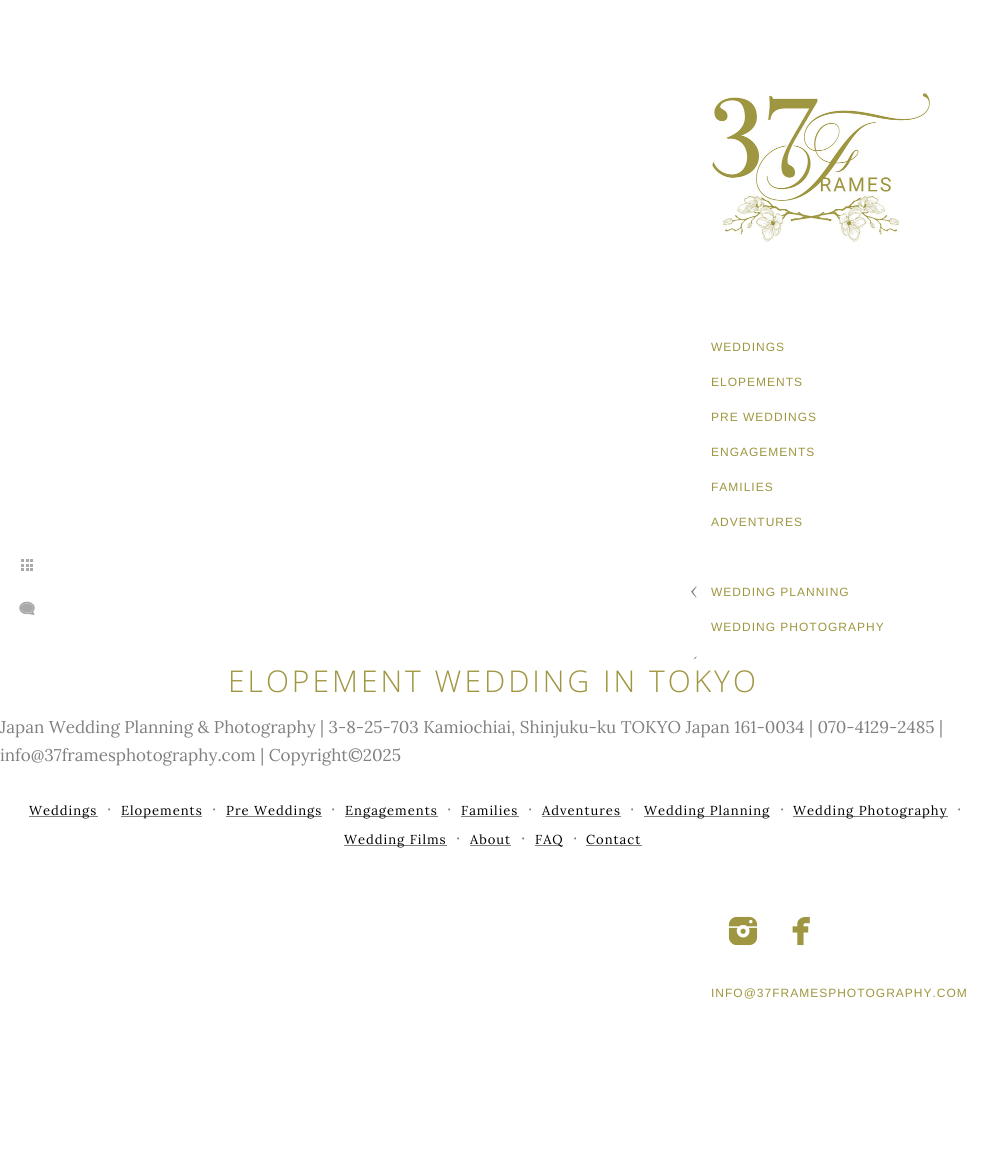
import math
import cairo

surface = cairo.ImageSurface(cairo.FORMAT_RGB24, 986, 1153)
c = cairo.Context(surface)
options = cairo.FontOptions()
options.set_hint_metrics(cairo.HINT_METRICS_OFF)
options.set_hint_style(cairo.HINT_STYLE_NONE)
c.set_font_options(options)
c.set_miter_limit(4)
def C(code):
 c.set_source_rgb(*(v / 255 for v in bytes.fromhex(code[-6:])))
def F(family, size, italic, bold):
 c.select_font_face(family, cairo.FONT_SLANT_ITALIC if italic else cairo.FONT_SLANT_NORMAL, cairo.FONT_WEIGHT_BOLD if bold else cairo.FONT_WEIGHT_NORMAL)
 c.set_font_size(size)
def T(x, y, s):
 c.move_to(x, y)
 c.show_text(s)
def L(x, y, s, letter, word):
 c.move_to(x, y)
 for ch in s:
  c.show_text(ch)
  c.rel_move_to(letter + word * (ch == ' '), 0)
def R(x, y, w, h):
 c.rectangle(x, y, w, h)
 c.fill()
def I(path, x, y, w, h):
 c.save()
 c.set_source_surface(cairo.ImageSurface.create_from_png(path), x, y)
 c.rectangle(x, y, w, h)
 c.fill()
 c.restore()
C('ffffff')
c.paint()
I('1.png',21,559,12,12)
I('2.png',19,601,16,15)
I('3.png',711,91,219,151)
F('Liberation Sans',12,0,0)
C('9e9640')
L(711,351,'WEDDINGS',1,0)
L(711,386,'ELOPEMENTS',1,0)
L(711,421,'PRE WEDDINGS',1,0)
L(711,456,'ENGAGEMENTS',1,0)
L(711,491,'FAMILIES',1,0)
L(711,526,'ADVENTURES',1,0)
I('4.png',691,586,6,12)
L(711,596,'WEDDING PLANNING',1,0)
L(711,631,'WEDDING PHOTOGRAPHY',1,0)
I('5.png',693,656,4,3)
I('6.png',728,916,30,30)
I('7.png',792,916,18,30)
L(711,997,'INFO@37FRAMESPHOTOGRAPHY.COM',1,0)
F('Open Sans Light',30,0,0)
L(228,692,'ELOPEMENT WEDDING IN TOKYO',3,0)
F('Lora',17,0,0)
C('808080')
T(0,733,'Japan Wedding Planning & Photography | 3-8-25-703 Kamiochiai, Shinjuku-ku TOKYO Japan 161-0034 | 070-4129-2485 |')
T(0,761,'info@37framesphotography.com | Copyright©2025')
R(29,816,69,1)
F('Lora',13,0,0)
C('000000')
L(29,815,'Weddings',1,0)
F('Lora',17,0,0)
C('808080')
T(107,815,'·')
R(121,816,81,1)
F('Lora',13,0,0)
C('000000')
L(121,815,'Elopements',1,0)
F('Lora',17,0,0)
C('808080')
T(212,815,'·')
R(226,816,96,1)
F('Lora',13,0,0)
C('000000')
L(226,815,'Pre Weddings',1,0)
F('Lora',17,0,0)
C('808080')
T(331,815,'·')
R(345,816,93,1)
F('Lora',13,0,0)
C('000000')
L(345,815,'Engagements',1,0)
F('Lora',17,0,0)
C('808080')
T(447,815,'·')
F('Lora',13,0,0)
C('000000')
L(461,815,'Families',1,0)
C('808080')
R(461,816,58,1)
F('Lora',17,0,0)
T(528,815,'·')
F('Lora',13,0,0)
C('000000')
L(542,815,'Adventures',1,0)
C('808080')
R(542,816,79,1)
F('Lora',17,0,0)
T(630,815,'·')
R(644,816,126,1)
F('Lora',13,0,0)
C('000000')
L(644,815,'Wedding Planning',1,0)
F('Lora',17,0,0)
C('808080')
T(780,815,'·')
R(793,816,155,1)
F('Lora',13,0,0)
C('000000')
L(793,815,'Wedding Photography',1,0)
F('Lora',17,0,0)
C('808080')
T(957,815,'·')
R(344,845,103,1)
F('Lora',13,0,0)
C('000000')
L(344,844,'Wedding Films',1,0)
F('Lora',17,0,0)
C('808080')
T(456,844,'·')
F('Lora',13,0,0)
C('000000')
L(470,844,'About',1,0)
C('808080')
R(470,845,41,1)
F('Lora',17,0,0)
T(521,844,'·')
R(535,845,28,1)
F('Lora',13,0,0)
C('000000')
L(535,844,'FAQ',1,0)
F('Lora',17,0,0)
C('808080')
T(573,844,'·')
F('Lora',13,0,0)
C('000000')
L(586,844,'Contact',1,0)
C('808080')
R(586,845,56,1)
surface.write_to_png('o.png')
